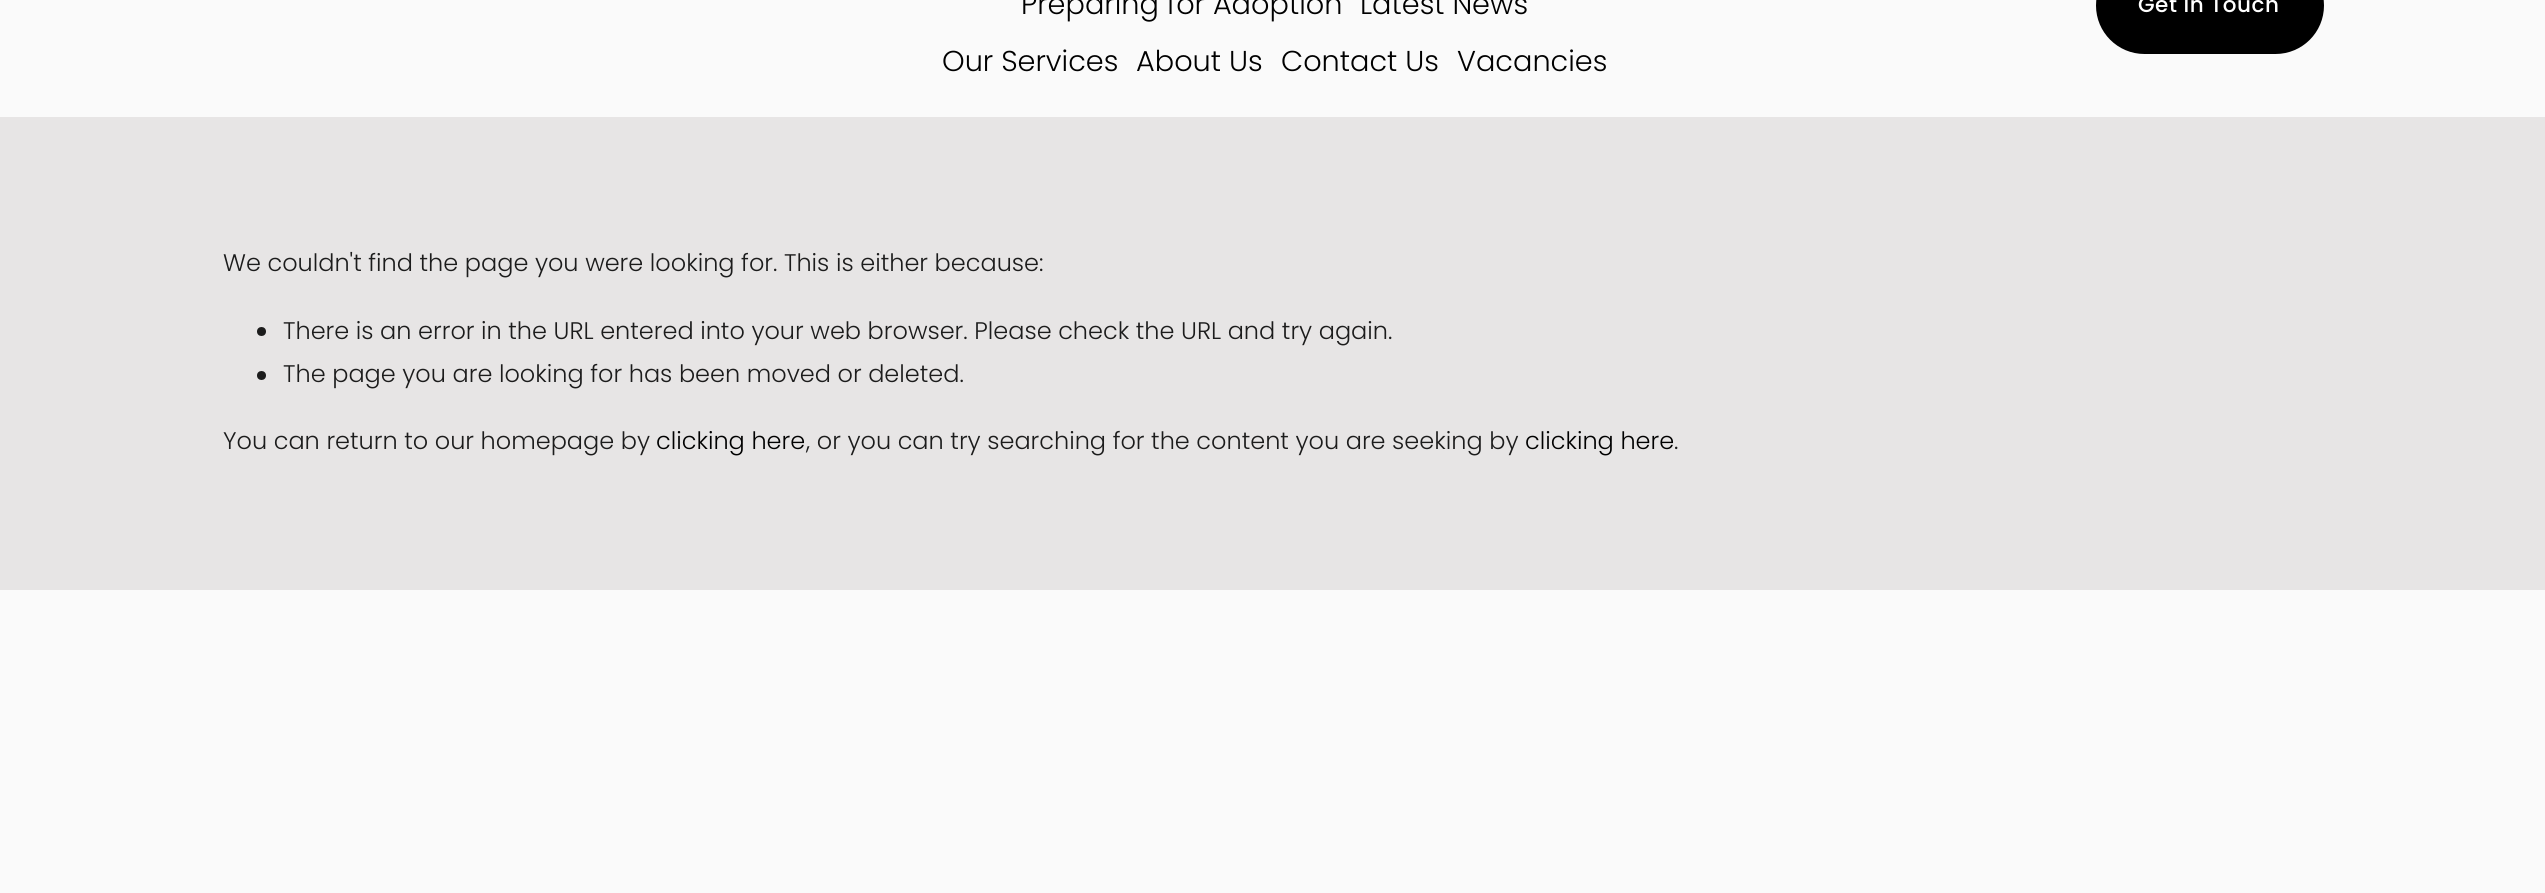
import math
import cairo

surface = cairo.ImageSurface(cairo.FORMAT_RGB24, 2545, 893)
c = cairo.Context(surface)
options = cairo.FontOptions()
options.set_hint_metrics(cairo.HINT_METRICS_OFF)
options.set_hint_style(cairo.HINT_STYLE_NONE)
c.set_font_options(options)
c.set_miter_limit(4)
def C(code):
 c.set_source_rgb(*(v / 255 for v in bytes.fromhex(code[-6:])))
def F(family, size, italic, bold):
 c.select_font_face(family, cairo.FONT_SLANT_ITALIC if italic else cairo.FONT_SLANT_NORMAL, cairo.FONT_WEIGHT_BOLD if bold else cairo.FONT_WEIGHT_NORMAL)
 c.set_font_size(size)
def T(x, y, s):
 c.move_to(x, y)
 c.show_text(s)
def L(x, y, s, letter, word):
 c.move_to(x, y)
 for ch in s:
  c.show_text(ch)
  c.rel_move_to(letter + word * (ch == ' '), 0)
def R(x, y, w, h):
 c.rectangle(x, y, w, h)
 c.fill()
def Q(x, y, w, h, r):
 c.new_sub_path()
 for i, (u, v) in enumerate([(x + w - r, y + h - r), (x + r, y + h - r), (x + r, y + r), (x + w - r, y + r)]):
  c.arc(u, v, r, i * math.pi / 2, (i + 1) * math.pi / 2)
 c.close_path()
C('e7e5e5')
c.paint()
C('fafafa')
R(0,0,2545,117)
F('Poppins Light',28.75,0,0)
C('000000')
T(1021,14,'Preparing for Adoption')
T(1360,14,'Latest News')
T(942,71,'Our Services')
T(1136,71,'About Us')
T(1281,71,'Contact Us')
T(1457,71,'Vacancies')
Q(2096,-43,228,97,48.5)
c.fill()
F('Poppins Medium',21.5,0,0)
C('ffffff')
L(2138,12,'Get In Touch',.5,0)
F('Poppins Light',24,0,0)
C('1c1c1c')
T(223,271,'We couldn\'t find the page you were looking for. This is either because:')
c.new_path()
c.arc(261.5,331.5,4.5,0,2 * math.pi)
c.fill()
T(283,339,'There is an error in the URL entered into your web browser. Please check the URL and try again.')
c.new_path()
c.arc(261.5,375.5,4.5,0,2 * math.pi)
c.fill()
T(283,382,'The page you are looking for has been moved or deleted.')
T(223,449,'You can return to our homepage by')
C('000000')
T(656,449,'clicking here')
C('1c1c1c')
T(806,449,', or you can try searching for the content you are seeking by')
C('000000')
T(1525,449,'clicking here')
C('1c1c1c')
T(1674,449,'.')
C('fafafa')
R(0,590,2545,303)
surface.write_to_png('o.png')
